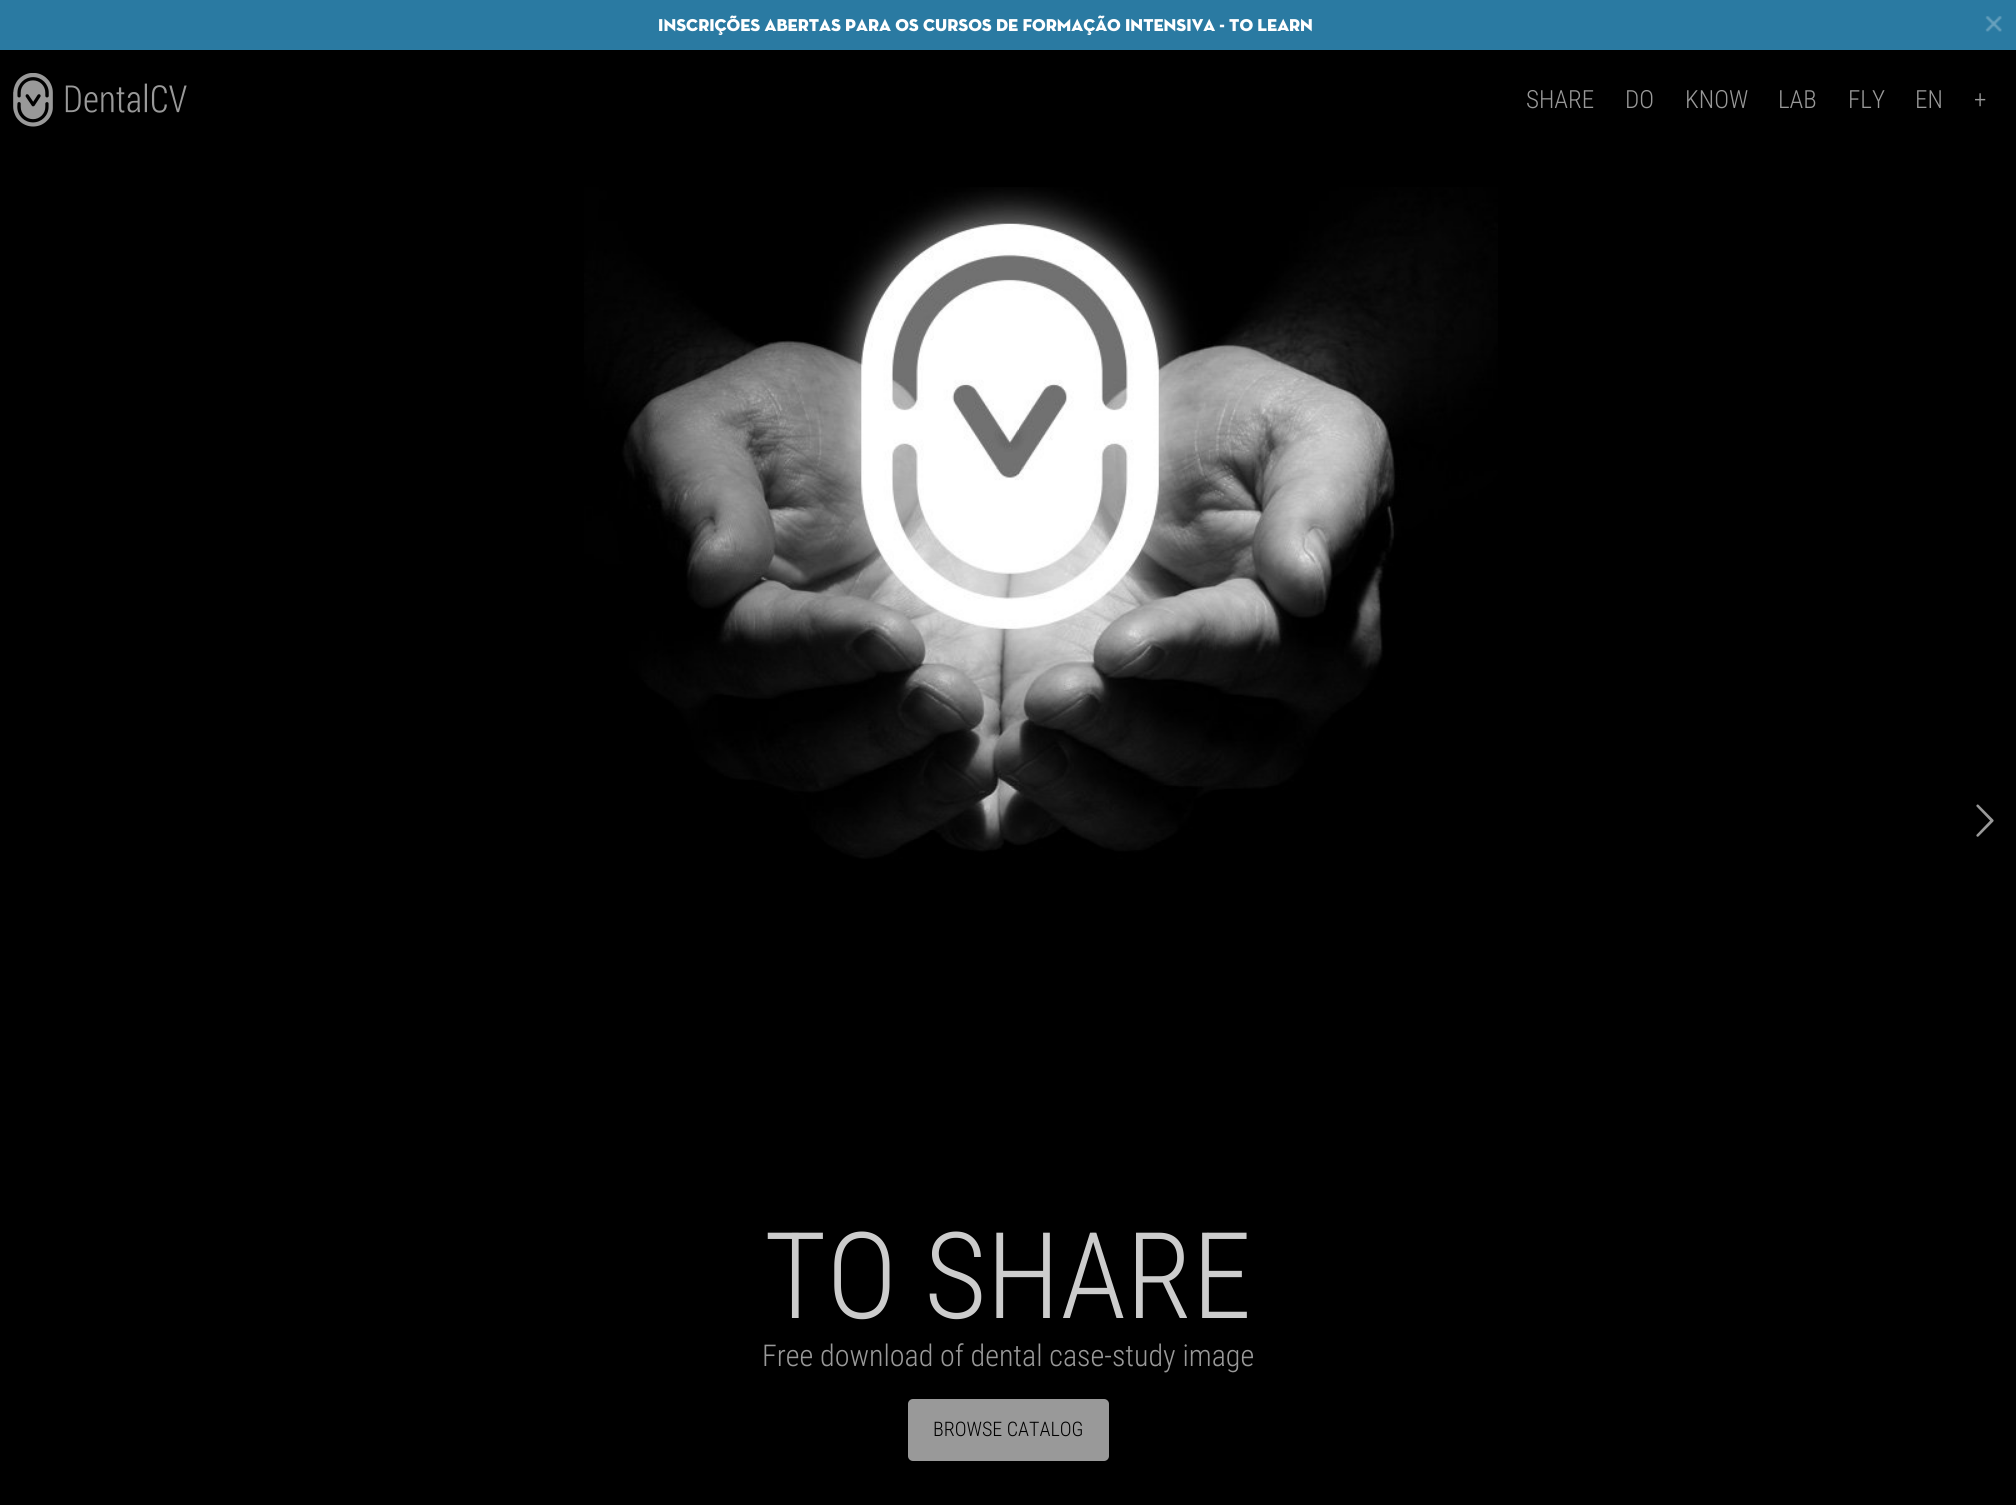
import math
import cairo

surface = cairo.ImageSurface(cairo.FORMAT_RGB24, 2016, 1505)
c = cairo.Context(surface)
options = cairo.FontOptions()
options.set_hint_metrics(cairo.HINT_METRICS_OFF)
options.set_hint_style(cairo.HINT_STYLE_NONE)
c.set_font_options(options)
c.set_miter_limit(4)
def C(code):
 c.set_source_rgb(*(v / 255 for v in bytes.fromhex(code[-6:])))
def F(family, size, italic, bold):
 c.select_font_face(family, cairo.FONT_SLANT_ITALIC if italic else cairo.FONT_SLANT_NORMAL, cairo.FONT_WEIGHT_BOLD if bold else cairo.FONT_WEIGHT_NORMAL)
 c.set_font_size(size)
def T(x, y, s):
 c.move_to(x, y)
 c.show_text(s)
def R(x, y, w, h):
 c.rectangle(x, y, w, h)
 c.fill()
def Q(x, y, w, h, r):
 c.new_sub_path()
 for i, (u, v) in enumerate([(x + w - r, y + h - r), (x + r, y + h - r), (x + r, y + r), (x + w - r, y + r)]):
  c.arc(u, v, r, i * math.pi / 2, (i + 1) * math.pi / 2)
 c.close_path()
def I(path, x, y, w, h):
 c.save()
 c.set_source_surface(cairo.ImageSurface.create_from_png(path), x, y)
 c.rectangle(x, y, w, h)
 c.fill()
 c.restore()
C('000000')
c.paint()
C('2a7aa2')
R(0,0,2016,50)
F('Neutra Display',17.5,0,0)
C('ffffff')
T(658,31,'Inscrições abertas para os cursos de formação intensiva - To Learn')
I('1.png',1985,16,17,16)
I('2.png',13,73,174,54)
F('Roboto Condensed Light',25,0,0)
C('999999')
T(1526,108,'SHARE')
T(1625,108,'DO')
T(1685,108,'KNOW')
T(1778,108,'LAB')
T(1848,108,'FLY')
T(1915,108,'EN')
T(1974,108,'+')
I('3.png',1976,804,18,33)
I('4.png',584,187,914,672)
F('Roboto Condensed Light',120,0,0)
C('cccccc')
T(764,1318,'TO SHARE')
F('Roboto Condensed Light',30,0,0)
C('999999')
T(762,1366,'Free download of dental case-study image')
Q(908,1399,201,62,5)
c.fill()
F('Roboto Condensed Light',20,0,0)
C('000000')
T(933,1436,'BROWSE CATALOG')
surface.write_to_png('o.png')
